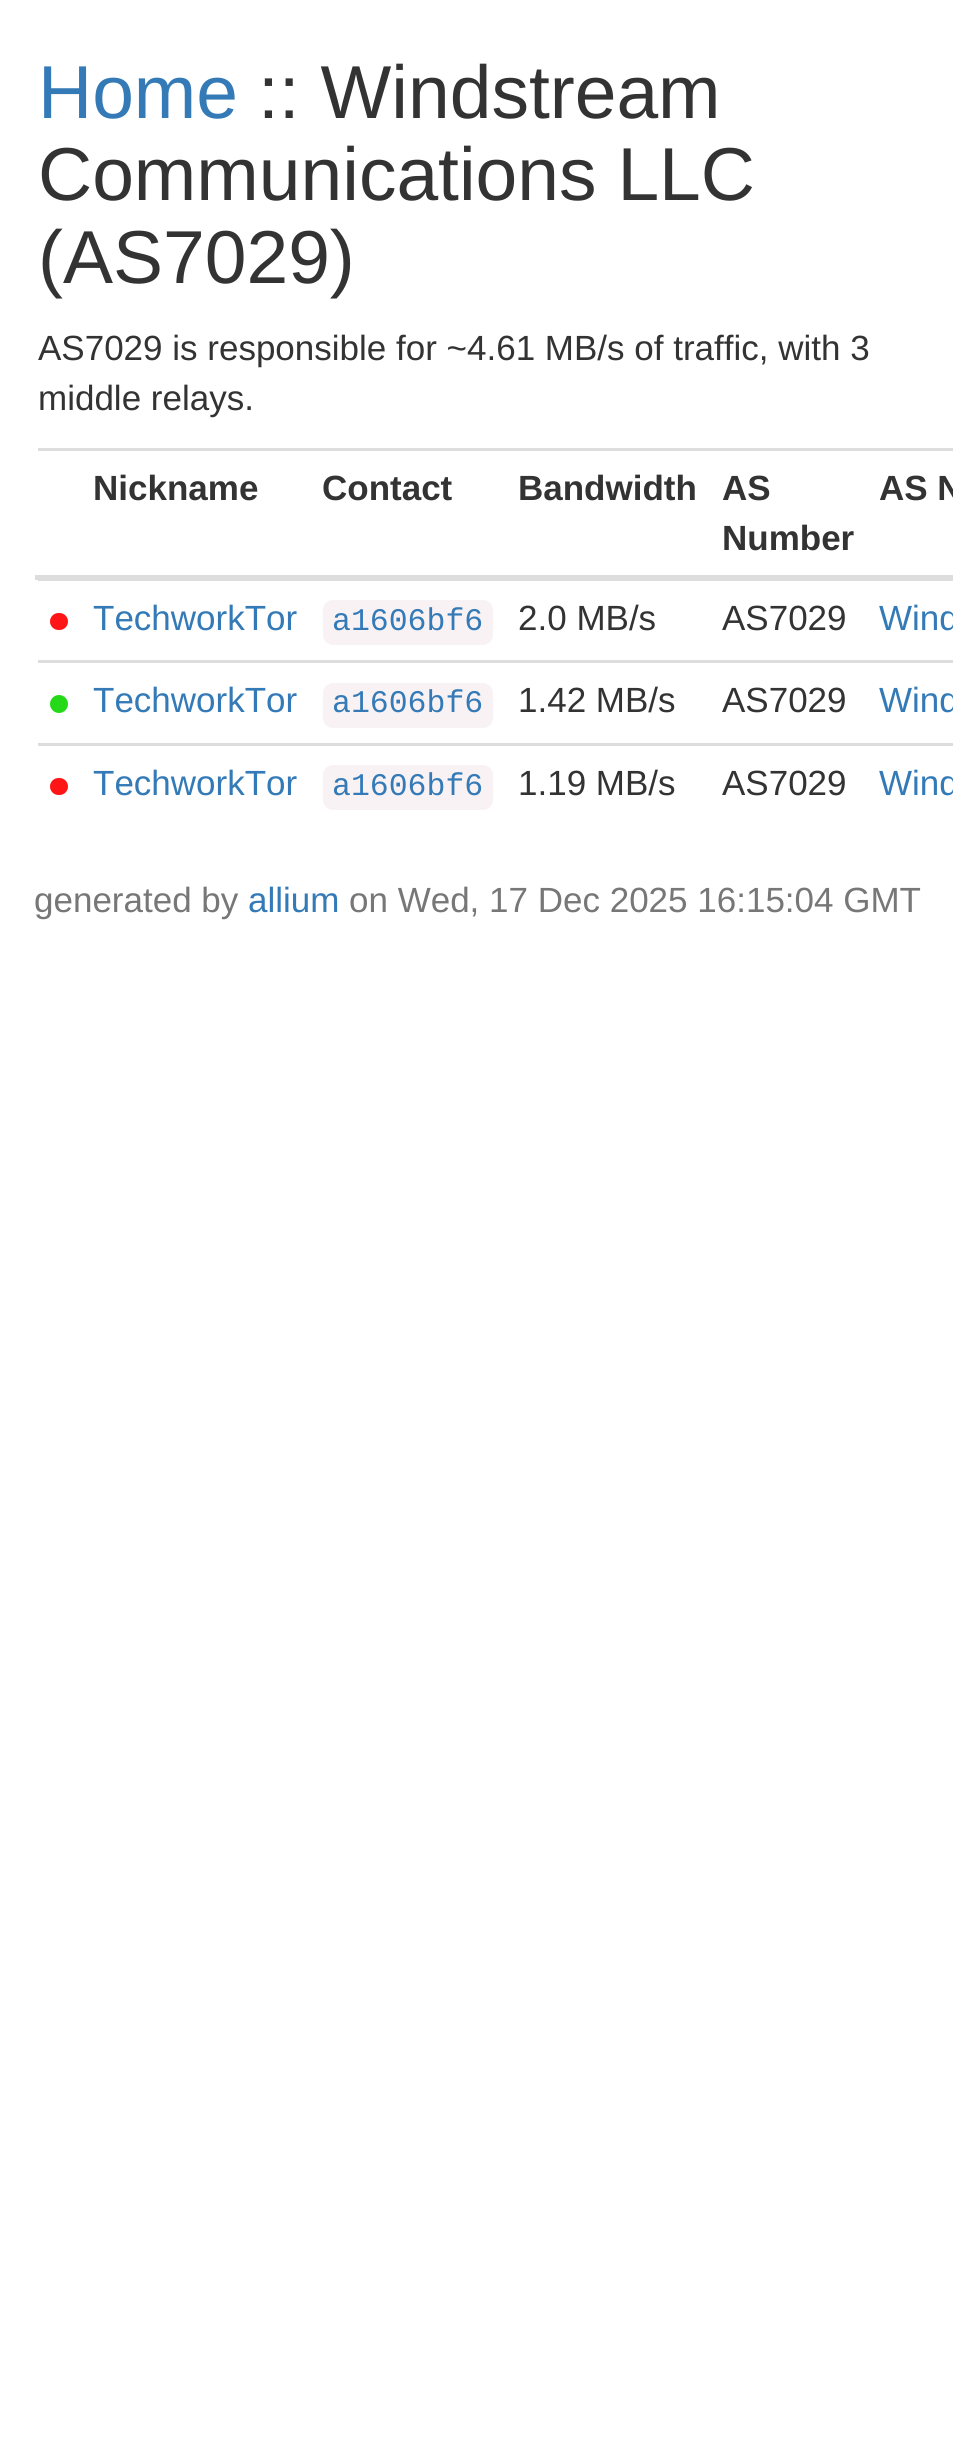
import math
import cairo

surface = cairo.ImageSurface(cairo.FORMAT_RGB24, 953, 2458)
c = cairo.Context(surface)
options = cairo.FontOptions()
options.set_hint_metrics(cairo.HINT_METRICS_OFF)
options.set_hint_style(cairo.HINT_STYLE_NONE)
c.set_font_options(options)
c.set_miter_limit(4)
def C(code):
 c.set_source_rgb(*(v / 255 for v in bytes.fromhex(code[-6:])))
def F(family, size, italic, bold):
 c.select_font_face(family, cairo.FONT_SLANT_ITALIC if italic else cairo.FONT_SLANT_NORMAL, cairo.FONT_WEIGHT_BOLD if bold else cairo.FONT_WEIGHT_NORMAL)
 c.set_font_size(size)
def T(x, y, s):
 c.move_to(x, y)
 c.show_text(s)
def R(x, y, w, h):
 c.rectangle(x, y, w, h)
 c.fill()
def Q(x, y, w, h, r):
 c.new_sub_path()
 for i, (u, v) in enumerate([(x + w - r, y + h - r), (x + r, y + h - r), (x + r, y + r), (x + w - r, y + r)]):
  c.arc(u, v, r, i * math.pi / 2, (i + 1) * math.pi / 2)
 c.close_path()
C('ffffff')
c.paint()
F('Liberation Sans',75,0,0)
C('337ab7')
T(38,118,'Home')
C('333333')
T(258,118,':: Windstream')
T(38,200,'Communications LLC')
T(38,283,'(AS7029)')
F('Liberation Sans',35,0,0)
T(38,360,'AS7029 is responsible for ~4.61 MB/s of traffic, with 3')
T(38,410,'middle relays.')
F('Liberation Sans',35,0,1)
T(93,500,'Nickname')
T(322,500,'Contact')
T(518,500,'Bandwidth')
T(722,500,'AS')
T(722,550,'Number')
C('dddddd')
R(38,448,915,3)
C('333333')
T(879,500,'AS N')
C('dddddd')
R(35,575,918,5)
C('ff1515')
Q(50,613,18,17,8.5)
c.fill()
F('Liberation Sans',35,0,0)
C('337ab7')
T(93,630,'TechworkTor')
C('f9f2f4')
Q(323,600,170,45,10)
c.fill()
F('Liberation Mono',31.5,0,0)
C('337ab7')
T(332,630,'a1606bf6')
F('Liberation Sans',35,0,0)
C('333333')
T(518,630,'2.0 MB/s')
T(722,630,'AS7029')
C('dddddd')
R(38,580,915,1)
C('337ab7')
T(879,630,'Wind')
C('25d918')
c.new_path()
c.arc(59,704,9,0,2 * math.pi)
c.fill()
C('337ab7')
T(93,712,'TechworkTor')
C('f9f2f4')
Q(323,683,170,45,10)
c.fill()
F('Liberation Mono',31.5,0,0)
C('337ab7')
T(332,712,'a1606bf6')
F('Liberation Sans',35,0,0)
C('333333')
T(518,712,'1.42 MB/s')
T(722,712,'AS7029')
C('dddddd')
R(38,660,915,3)
C('337ab7')
T(879,712,'Wind')
C('ff1515')
Q(50,778,18,17,8.5)
c.fill()
C('337ab7')
T(93,795,'TechworkTor')
C('f9f2f4')
Q(323,765,170,45,10)
c.fill()
F('Liberation Mono',31.5,0,0)
C('337ab7')
T(332,795,'a1606bf6')
F('Liberation Sans',35,0,0)
C('333333')
T(518,795,'1.19 MB/s')
T(722,795,'AS7029')
C('dddddd')
R(38,743,915,3)
C('337ab7')
T(879,795,'Wind')
C('777777')
T(34,912,'generated by')
C('337ab7')
T(248,912,'allium')
C('777777')
T(349,912,'on Wed, 17 Dec 2025 16:15:04 GMT')
surface.write_to_png('o.png')
